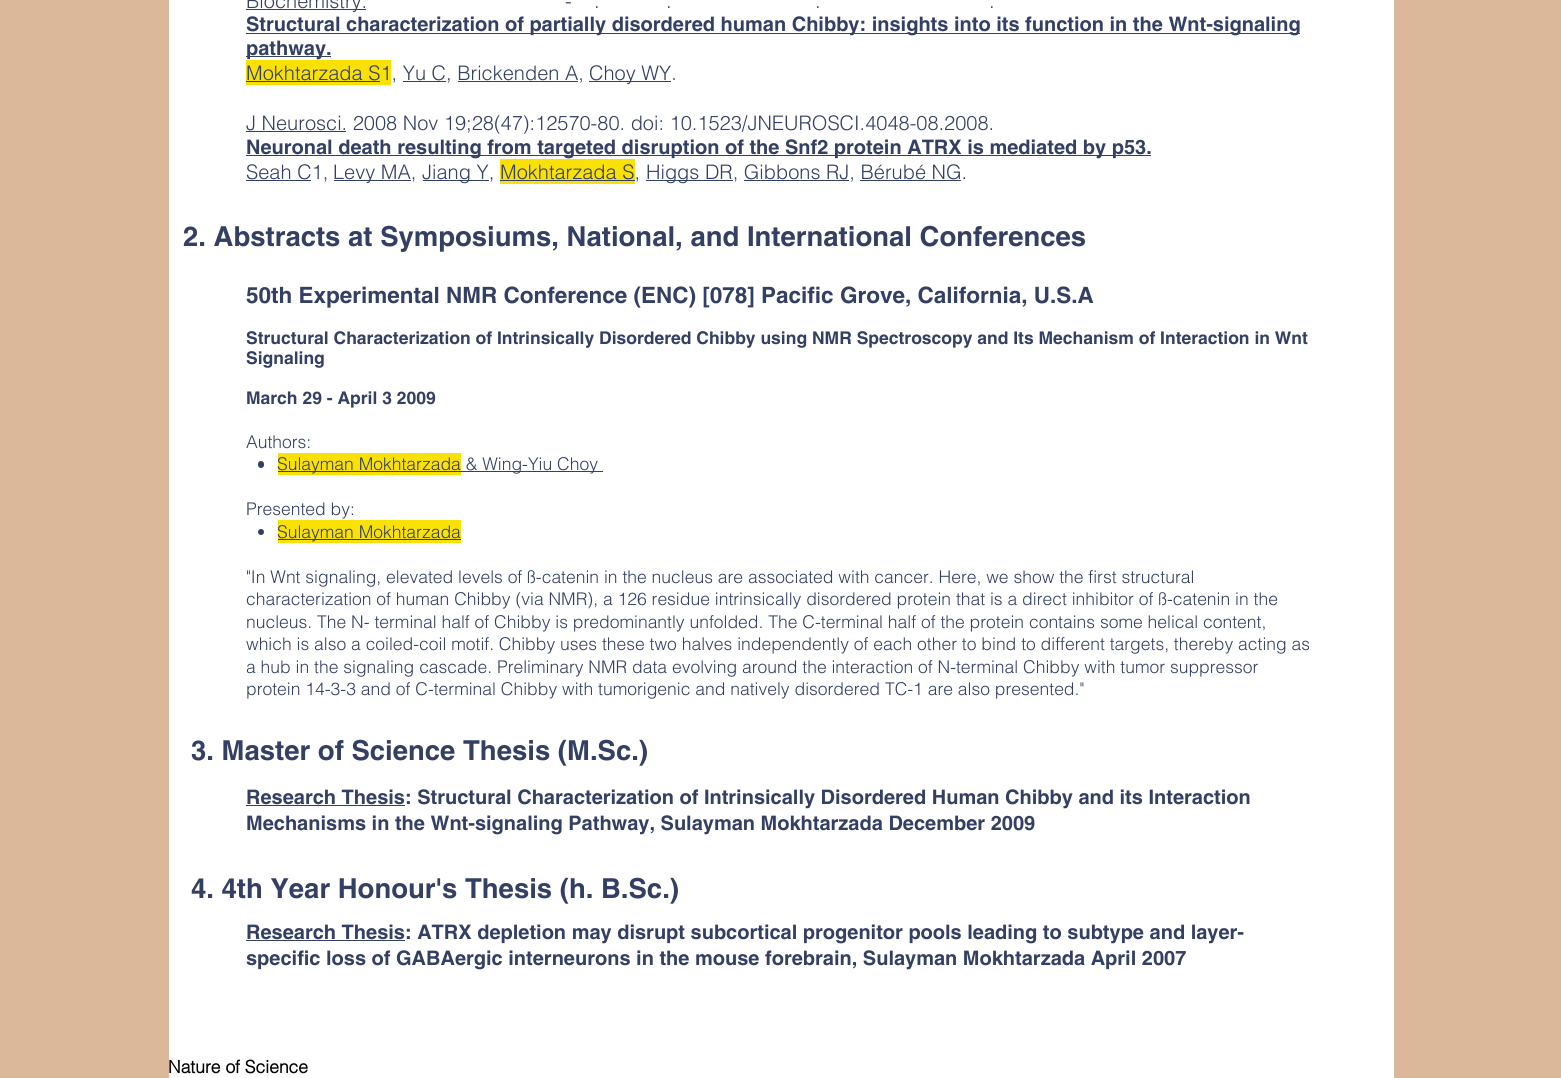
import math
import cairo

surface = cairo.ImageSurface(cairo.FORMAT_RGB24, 1561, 1078)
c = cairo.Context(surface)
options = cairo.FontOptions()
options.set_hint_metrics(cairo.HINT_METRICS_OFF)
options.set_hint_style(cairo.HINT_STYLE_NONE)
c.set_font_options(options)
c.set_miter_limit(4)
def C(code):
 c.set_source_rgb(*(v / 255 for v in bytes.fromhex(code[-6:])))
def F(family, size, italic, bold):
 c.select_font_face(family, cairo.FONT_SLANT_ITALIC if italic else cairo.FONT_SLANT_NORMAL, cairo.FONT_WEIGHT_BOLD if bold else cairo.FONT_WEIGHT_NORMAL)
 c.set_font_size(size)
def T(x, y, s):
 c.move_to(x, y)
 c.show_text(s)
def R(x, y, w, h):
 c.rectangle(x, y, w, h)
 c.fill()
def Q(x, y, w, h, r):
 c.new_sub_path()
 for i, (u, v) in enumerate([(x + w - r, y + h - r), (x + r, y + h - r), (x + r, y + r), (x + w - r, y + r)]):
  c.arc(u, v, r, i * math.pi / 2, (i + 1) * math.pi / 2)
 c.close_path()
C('dbb89a')
c.paint()
C('ffffff')
R(169,0,1225,1078)
C('343f64')
R(246,9,120,1)
F('helvetica Light',20,0,0)
T(246,8,'Biochemistry.')
T(565,8,'-')
T(594,8,'.')
T(666,8,'.')
T(815,8,'.')
T(989,8,'.')
R(246,33,1054,1)
F('helvetica',20,0,1)
T(246,31,'Structural characterization of partially disordered human Chibby: insights into its function in the Wnt-signaling')
R(246,56,85,1)
T(246,55,'pathway.')
C('fae105')
R(246,60,145,25)
C('343f64')
R(246,81,134,1)
F('helvetica Light',20,0,0)
T(246,80,'Mokhtarzada S1, Yu C, Brickenden A,')
R(403,81,43,1)
R(458,81,120,1)
R(589,81,82,1)
T(589,80,'Choy WY.')
R(246,131,100,1)
T(246,130,'J Neurosci. 2008 Nov 19;28(47):12570-80. doi: 10.1523/JNEUROSCI.4048-08.2008.')
R(246,155,905,1)
F('helvetica',20,0,1)
T(246,154,'Neuronal death resulting from targeted disruption of the Snf2 protein ATRX is mediated by p53.')
R(246,180,65,1)
F('helvetica Light',20,0,0)
T(246,179,'Seah C1,')
R(334,180,77,1)
T(333,179,'Levy MA,')
R(423,180,66,1)
T(422,179,'Jiang Y,')
C('fae105')
R(500,159,135,25)
C('343f64')
R(500,180,135,1)
T(500,179,'Mokhtarzada S,')
R(646,180,87,1)
T(646,179,'Higgs DR, Gibbons RJ, Bérubé NG.')
R(744,180,105,1)
R(860,180,101,1)
F('helvetica',27.5,0,1)
T(183,246,'2. Abstracts at Symposiums, National, and International Conferences')
F('helvetica',22.5,0,1)
T(246,303,'50th Experimental NMR Conference (ENC) [078] Pacific Grove, California, U.S.A')
F('helvetica',17.5,0,1)
T(246,344,'Structural Characterization of Intrinsically Disordered Chibby using NMR Spectroscopy and Its Mechanism of Interaction in Wnt')
T(246,364,'Signaling')
T(246,404,'March 29 - April 3 2009')
F('helvetica Light',17.5,0,0)
T(246,448,'Authors:')
Q(258,461,6,7,3)
c.fill()
C('fae105')
R(278,453,183,22)
C('343f64')
R(278,471,325,1)
T(277,470,'Sulayman Mokhtarzada & Wing-Yiu Choy')
T(246,515,'Presented by:')
c.new_path()
c.arc(261,532,3,0,2 * math.pi)
c.fill()
C('fae105')
R(278,520,183,23)
C('343f64')
R(278,539,183,1)
T(277,538,'Sulayman Mokhtarzada')
T(246,583,'"In Wnt signaling, elevated levels of ß-catenin in the nucleus are associated with cancer. Here, we show the first structural')
T(246,605,'characterization of human Chibby (via NMR), a 126 residue intrinsically disordered protein that is a direct inhibitor of ß-catenin in the')
T(246,628,'nucleus. The N- terminal half of Chibby is predominantly unfolded. The C-terminal half of the protein contains some helical content,')
T(246,650,'which is also a coiled-coil motif. Chibby uses these two halves independently of each other to bind to different targets, thereby acting as')
T(246,673,'a hub in the signaling cascade. Preliminary NMR data evolving around the interaction of N-terminal Chibby with tumor suppressor')
T(246,695,'protein 14-3-3 and of C-terminal Chibby with tumorigenic and natively disordered TC-1 are also presented."')
F('helvetica',27.5,0,1)
T(191,760,'3. Master of Science Thesis (M.Sc.)')
R(246,805,159,1)
F('helvetica',20,0,1)
T(246,804,'Research Thesis: Structural Characterization of Intrinsically Disordered Human Chibby and its Interaction')
T(246,830,'Mechanisms in the Wnt-signaling Pathway, Sulayman Mokhtarzada December 2009')
F('helvetica',27.5,0,1)
T(191,898,'4. 4th Year Honour\'s Thesis (h. B.Sc.)')
R(246,940,159,1)
F('helvetica',20,0,1)
T(246,939,'Research Thesis: ATRX depletion may disrupt subcortical progenitor pools leading to subtype and layer-')
T(246,965,'specific loss of GABAergic interneurons in the mouse forebrain, Sulayman Mokhtarzada April 2007')
F('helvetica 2',17.5,0,1)
C('000000')
T(168,1073,'Nature of Science')
surface.write_to_png('o.png')
